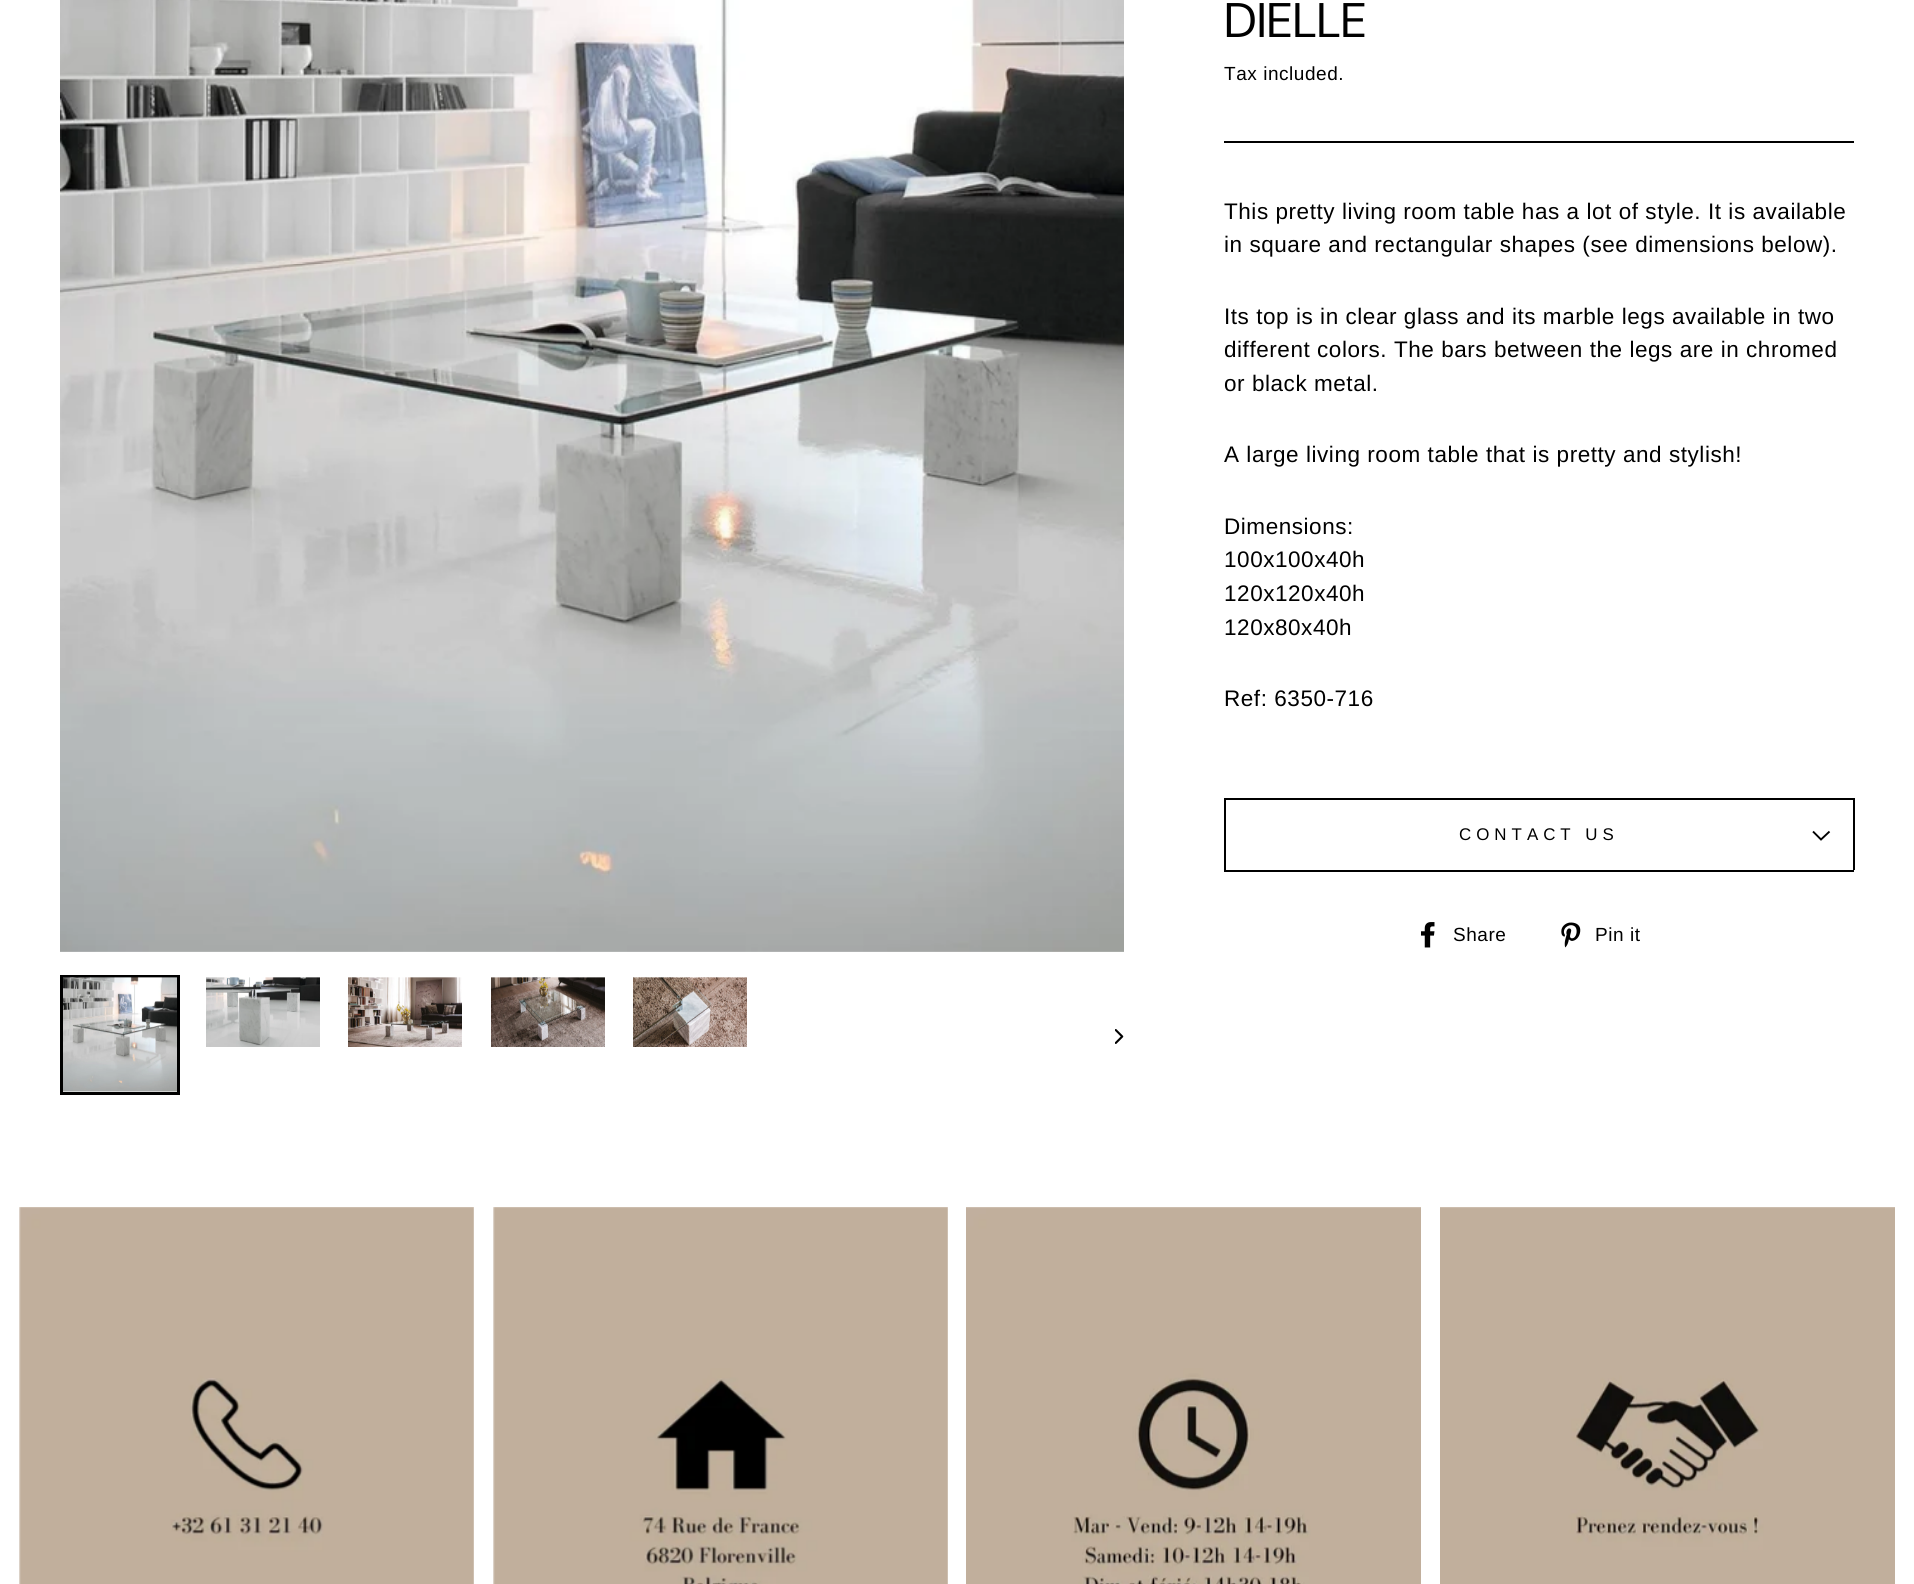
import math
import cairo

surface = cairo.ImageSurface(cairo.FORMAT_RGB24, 1914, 1584)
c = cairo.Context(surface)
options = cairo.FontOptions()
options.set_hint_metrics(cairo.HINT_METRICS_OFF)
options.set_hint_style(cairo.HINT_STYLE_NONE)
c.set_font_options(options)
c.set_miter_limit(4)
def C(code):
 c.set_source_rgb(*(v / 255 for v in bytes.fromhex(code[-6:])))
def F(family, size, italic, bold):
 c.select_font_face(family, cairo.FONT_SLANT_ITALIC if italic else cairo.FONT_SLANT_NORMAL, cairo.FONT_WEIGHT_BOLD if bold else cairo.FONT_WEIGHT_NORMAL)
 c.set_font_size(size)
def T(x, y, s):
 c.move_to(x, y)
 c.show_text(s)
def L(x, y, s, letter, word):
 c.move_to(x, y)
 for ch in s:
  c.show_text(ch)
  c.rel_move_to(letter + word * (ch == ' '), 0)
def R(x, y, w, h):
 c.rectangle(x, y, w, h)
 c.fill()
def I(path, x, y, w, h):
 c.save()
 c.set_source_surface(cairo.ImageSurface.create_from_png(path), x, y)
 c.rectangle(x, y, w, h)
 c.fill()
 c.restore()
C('ffffff')
c.paint()
I('1.png',60,0,1064,952)
c.rectangle(61.5,976.5,117,117)
C('000000')
c.set_line_width(3)
c.stroke()
I('2.png',63,977,114,115)
I('3.png',206,977,114,70)
I('4.png',348,977,114,70)
I('5.png',491,977,114,70)
I('6.png',633,977,114,70)
I('7.png',1115,1029,9,15)
F('DM Sans',48.5,0,0)
T(1224,37,'DIELLE')
F('Liberation Sans',19,0,0)
L(1224,80,'Tax included.',.55,0)
R(1224,141,630,2)
F('Liberation Sans',22.5,0,0)
L(1224,219,'This pretty living room table has a lot of style. It is available',.55,0)
L(1224,252,'in square and rectangular shapes (see dimensions below).',.55,0)
L(1224,324,'Its top is in clear glass and its marble legs available in two',.55,0)
L(1224,357,'different colors. The bars between the legs are in chromed',.55,0)
L(1224,391,'or black metal.',.55,0)
L(1224,462,'A large living room table that is pretty and stylish!',.55,0)
L(1224,534,'Dimensions:',.55,0)
L(1224,567,'100x100x40h',.55,0)
L(1224,601,'120x120x40h',.55,0)
L(1224,635,'120x80x40h',.55,0)
L(1224,706,'Ref: 6350-716',.55,0)
R(1224,870,630,2)
R(1224,798,630,2)
R(1853,798,2,72)
R(1224,798,2,72)
F('Liberation Sans',16.9,0,0)
L(1459,840,'CONTACT US',5,0)
c.new_path()
c.move_to(1813,831.5)
c.line_to(1821,839.5)
c.line_to(1829.5,831.5)
c.set_line_width(1.9)
c.stroke()
I('8.png',1421,922,14,26)
F('Liberation Sans',19,0,0)
L(1453,941,'Share',.55,0)
I('9.png',1561,922,20,26)
L(1595,941,'Pin it',.55,0)
I('10.png',19,1207,455,377)
I('11.png',493,1207,455,377)
I('12.png',966,1207,455,377)
I('13.png',1440,1207,455,377)
surface.write_to_png('o.png')
